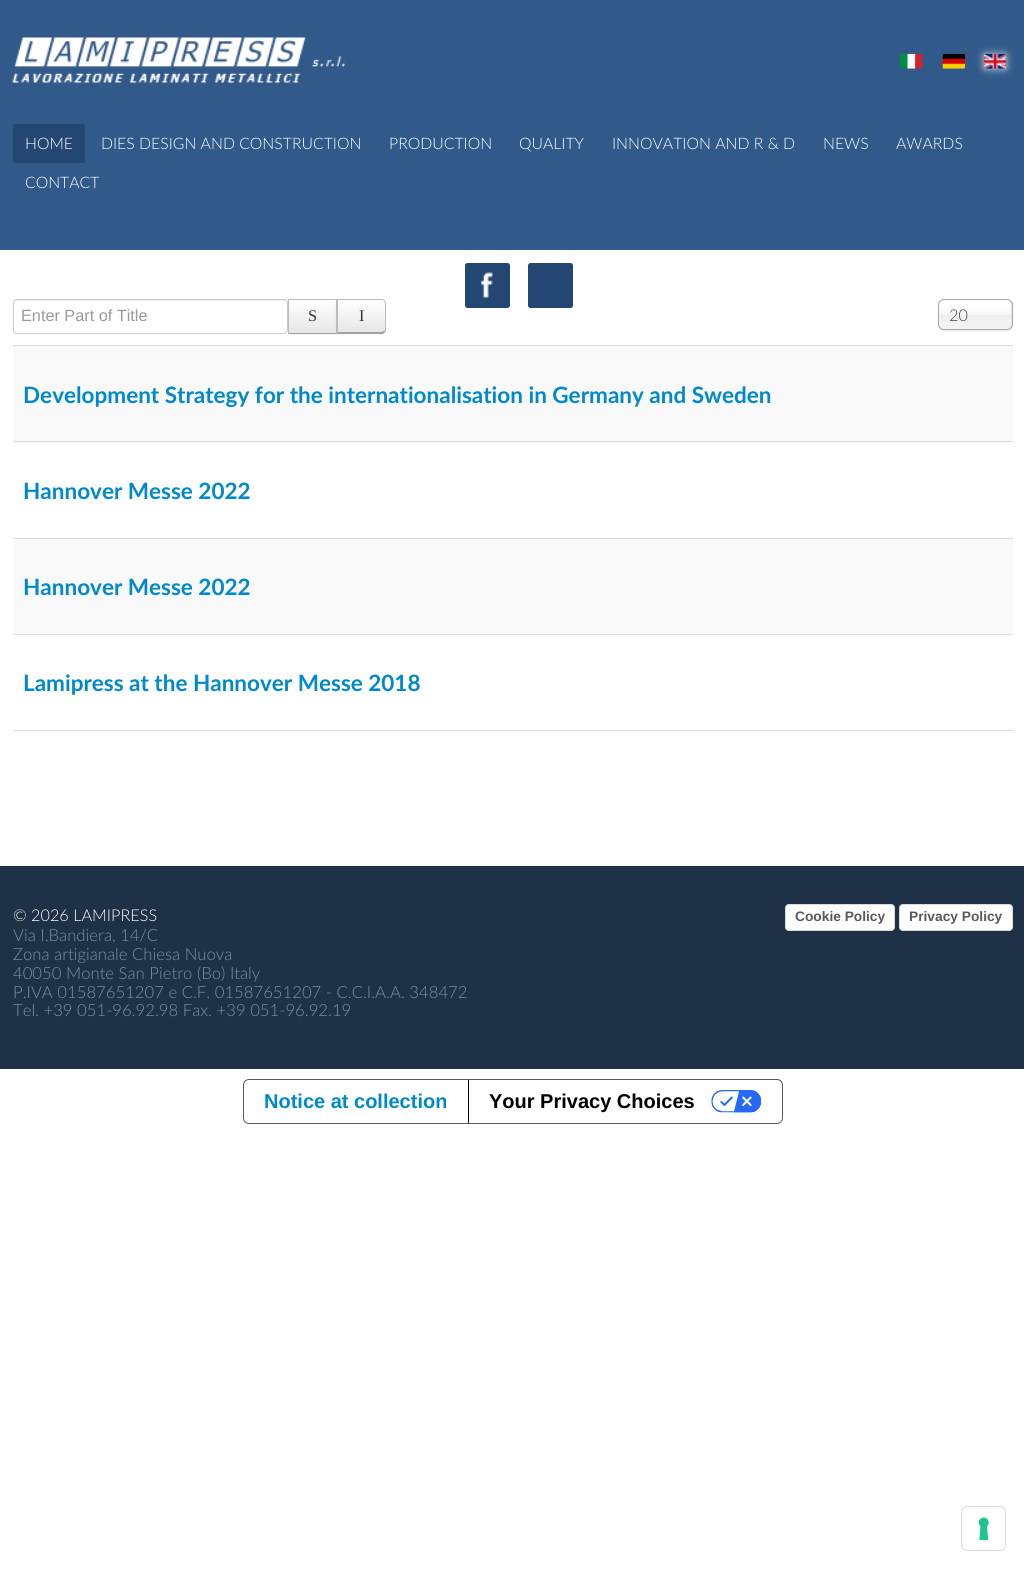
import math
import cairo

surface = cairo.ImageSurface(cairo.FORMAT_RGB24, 1024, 1569)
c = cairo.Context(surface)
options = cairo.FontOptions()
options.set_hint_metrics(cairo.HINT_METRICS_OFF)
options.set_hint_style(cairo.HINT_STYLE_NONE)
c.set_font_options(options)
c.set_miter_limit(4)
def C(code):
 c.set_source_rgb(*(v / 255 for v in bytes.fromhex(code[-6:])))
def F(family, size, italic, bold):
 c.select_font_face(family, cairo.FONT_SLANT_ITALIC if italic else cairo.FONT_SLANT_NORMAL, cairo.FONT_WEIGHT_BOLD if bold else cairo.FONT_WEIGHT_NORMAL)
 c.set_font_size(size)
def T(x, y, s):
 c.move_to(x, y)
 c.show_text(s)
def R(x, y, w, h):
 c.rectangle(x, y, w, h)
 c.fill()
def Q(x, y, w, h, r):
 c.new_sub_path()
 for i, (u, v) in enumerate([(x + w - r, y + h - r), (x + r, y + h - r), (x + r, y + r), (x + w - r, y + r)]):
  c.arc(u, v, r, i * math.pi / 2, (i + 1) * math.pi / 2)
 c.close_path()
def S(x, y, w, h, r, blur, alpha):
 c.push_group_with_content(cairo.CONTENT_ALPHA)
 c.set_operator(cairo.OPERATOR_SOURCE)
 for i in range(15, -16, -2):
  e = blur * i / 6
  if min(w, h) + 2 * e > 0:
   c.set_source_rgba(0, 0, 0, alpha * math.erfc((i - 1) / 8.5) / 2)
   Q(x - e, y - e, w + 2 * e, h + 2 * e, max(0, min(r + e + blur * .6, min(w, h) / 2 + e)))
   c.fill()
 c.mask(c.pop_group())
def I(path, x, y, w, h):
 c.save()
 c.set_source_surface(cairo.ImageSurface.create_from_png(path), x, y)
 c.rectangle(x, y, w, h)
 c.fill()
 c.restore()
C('ffffff')
c.paint()
C('31598a')
R(0,0,1024,250)
I('1.png',12,37,333,46)
I('2.png',900,53,23,16)
I('3.png',942,53,23,16)
C('ffffff')
S(984,54,22,15,1,4,.7)
I('4.png',983,53,24,16)
C('234672')
Q(13,124,72,39,2.5)
c.fill()
F('Lato Light',15.8,0,0)
C('ffffff')
T(25,149,'HOME')
T(101,149,'DIES DESIGN AND CONSTRUCTION')
T(389,149,'PRODUCTION')
T(519,149,'QUALITY')
T(612,149,'INNOVATION AND R & D')
T(823,149,'NEWS')
T(896,149,'AWARDS')
T(25,188,'CONTACT')
C('234672')
Q(465,263,45,45,2.5)
c.fill()
I('5.png',481,272,12,26)
Q(528,263,45,45,2.5)
c.fill()
C('ececec')
c.new_path()
c.move_to(16,301)
c.line_to(284,301)
c.curve_to(285,301,286,302,286,304)
c.line_to(286,302)
c.curve_to(286,301,285,300,284,300)
c.line_to(16,300)
c.curve_to(15,300,14,301,14,302)
c.line_to(14,304)
c.curve_to(14,302,15,301,16,301)
c.close_path()
c.fill()
Q(13.5,299.5,274,34,3.5)
C('cccccc')
c.set_line_width(1)
c.stroke()
F('Liberation Sans',16.25,0,0)
C('999999')
T(21,321,'Enter Part of Title')
C('000000')
S(288,300,50,35,0,1,.05)
gradient = cairo.LinearGradient(313,300,313,333)
gradient.add_color_stop_rgba(0,1,1,1,1)
gradient.add_color_stop_rgba(1,0.902,0.902,0.902,1)
c.set_source(gradient)
R(289,300,47,33)
C('bbbbbb')
R(288,299,50,1)
C('a2a2a2')
R(288,333,50,1)
C('bbbbbb')
R(288,299,1,35)
F('Liberation Serif',16.25,0,0)
C('333333')
T(308,321,'S')
C('000000')
S(336,300,50,35,5,1,.05)
c.save()
c.new_path()
c.move_to(336,299)
c.line_to(381,299)
c.curve_to(384,299,386,301,386,304)
c.line_to(386,329)
c.curve_to(386,332,384,334,381,334)
c.line_to(336,334)
c.close_path()
c.clip()
gradient = cairo.LinearGradient(361,300,361,333)
gradient.add_color_stop_rgba(0,1,1,1,1)
gradient.add_color_stop_rgba(1,0.902,0.902,0.902,1)
c.set_source(gradient)
R(337,300,49,33)
c.restore()
C('bbbbbb')
c.new_path()
c.move_to(338,300)
c.line_to(381,300)
c.curve_to(382,300,383,300,384,301)
c.line_to(385,300)
c.curve_to(384,300,382,299,381,299)
c.line_to(336,299)
c.close_path()
c.fill()
c.new_path()
c.move_to(384.5,300.5)
c.curve_to(385.5,301,386,302.5,386,304)
c.line_to(386,329)
c.curve_to(386,330.5,385.5,331.5,385,332.5)
c.line_to(384,331)
c.curve_to(384.5,331,385,330,385,329)
c.line_to(385,304)
c.curve_to(385,303,384.5,302,384,301)
c.close_path()
c.fill()
C('a2a2a2')
c.new_path()
c.move_to(385,332)
c.line_to(383,334)
c.line_to(336,334)
c.line_to(338,332)
c.line_to(381,332)
c.line_to(384,331)
c.close_path()
c.fill()
C('bbbbbb')
c.new_path()
c.move_to(336,334)
c.line_to(338,332)
c.line_to(338,300.5)
c.line_to(336,299)
c.close_path()
c.fill()
C('333333')
T(359,321,'I')
C('000000')
S(938,300,75,31,6,.5,.1)
gradient = cairo.LinearGradient(975,300,975,329)
gradient.add_color_stop_rgba(.2,1,1,1,1)
gradient.add_color_stop_rgba(.5,0.965,0.965,0.965,1)
gradient.add_color_stop_rgba(.52,0.933,0.933,0.933,1)
gradient.add_color_stop_rgba(1,0.957,0.957,0.957,1)
c.set_source(gradient)
Q(939,300,72,29,5)
c.fill()
Q(938.5,299.5,74,30,5.5)
C('aaaaaa')
c.stroke()
F('Lato Light',16.25,0,0)
C('444444')
T(949,321,'20')
C('dddddd')
R(13,345,1000,1)
C('f9f9f9')
R(13,346,1000,97)
C('dddddd')
R(13,441,1000,1)
F('Lato',22.5,0,1)
C('0088cc')
T(23,403,'Development Strategy for the internationalisation in Germany and Sweden')
C('dddddd')
R(13,538,1000,1)
C('0088cc')
T(23,499,'Hannover Messe 2022')
C('f9f9f9')
R(13,539,1000,95)
C('dddddd')
R(13,634,1000,1)
C('0088cc')
T(23,595,'Hannover Messe 2022')
C('dddddd')
R(13,730,1000,1)
C('0088cc')
T(23,691,'Lamipress at the Hannover Messe 2018')
C('1f3146')
R(0,866,1024,203)
F('Lato Light',16.25,0,0)
C('ffffff')
T(13,921,'© 2026 LAMIPRESS')
F('Lato Light',16.7,0,0)
C('7d90a2')
T(13,941,'Via I.Bandiera, 14/C')
T(13,960,'Zona artigianale Chiesa Nuova')
T(13,979,'40050 Monte San Pietro (Bo) Italy')
T(13,998,'P.IVA 01587651207 e C.F. 01587651207 - C.C.I.A.A. 348472')
T(13,1016,'Tel. +39 051-96.92.98 Fax. +39 051-96.92.19')
C('ffffff')
Q(785,904,110,27,4)
c.fill()
Q(785.5,904.5,109,26,3.5)
c.set_source_rgba(0,0,0,0.15)
c.stroke()
F('Liberation Sans',13.75,0,1)
C('595959')
T(795,921,'Cookie Policy')
C('ffffff')
Q(899,904,114,27,4)
c.fill()
Q(899.5,904.5,113,26,3.5)
c.set_source_rgba(0,0,0,0.15)
c.stroke()
C('595959')
T(909,921,'Privacy Policy')
Q(243.5,1079.5,539,44,5.5)
c.stroke()
F('Liberation Sans',20,0,1)
C('0088cc')
T(264,1108,'Notice at collection')
C('000000')
R(468,1080,1,43)
T(489,1108,'Your Privacy Choices')
I('6.png',711,1090,50,23)
Q(961.5,1506.5,44,44,5.5)
C('d9d9d9')
c.stroke()
C('ffffff')
Q(963,1508,42,42,5)
c.fill()
I('7.png',978,1517,11,23)
surface.write_to_png('o.png')
